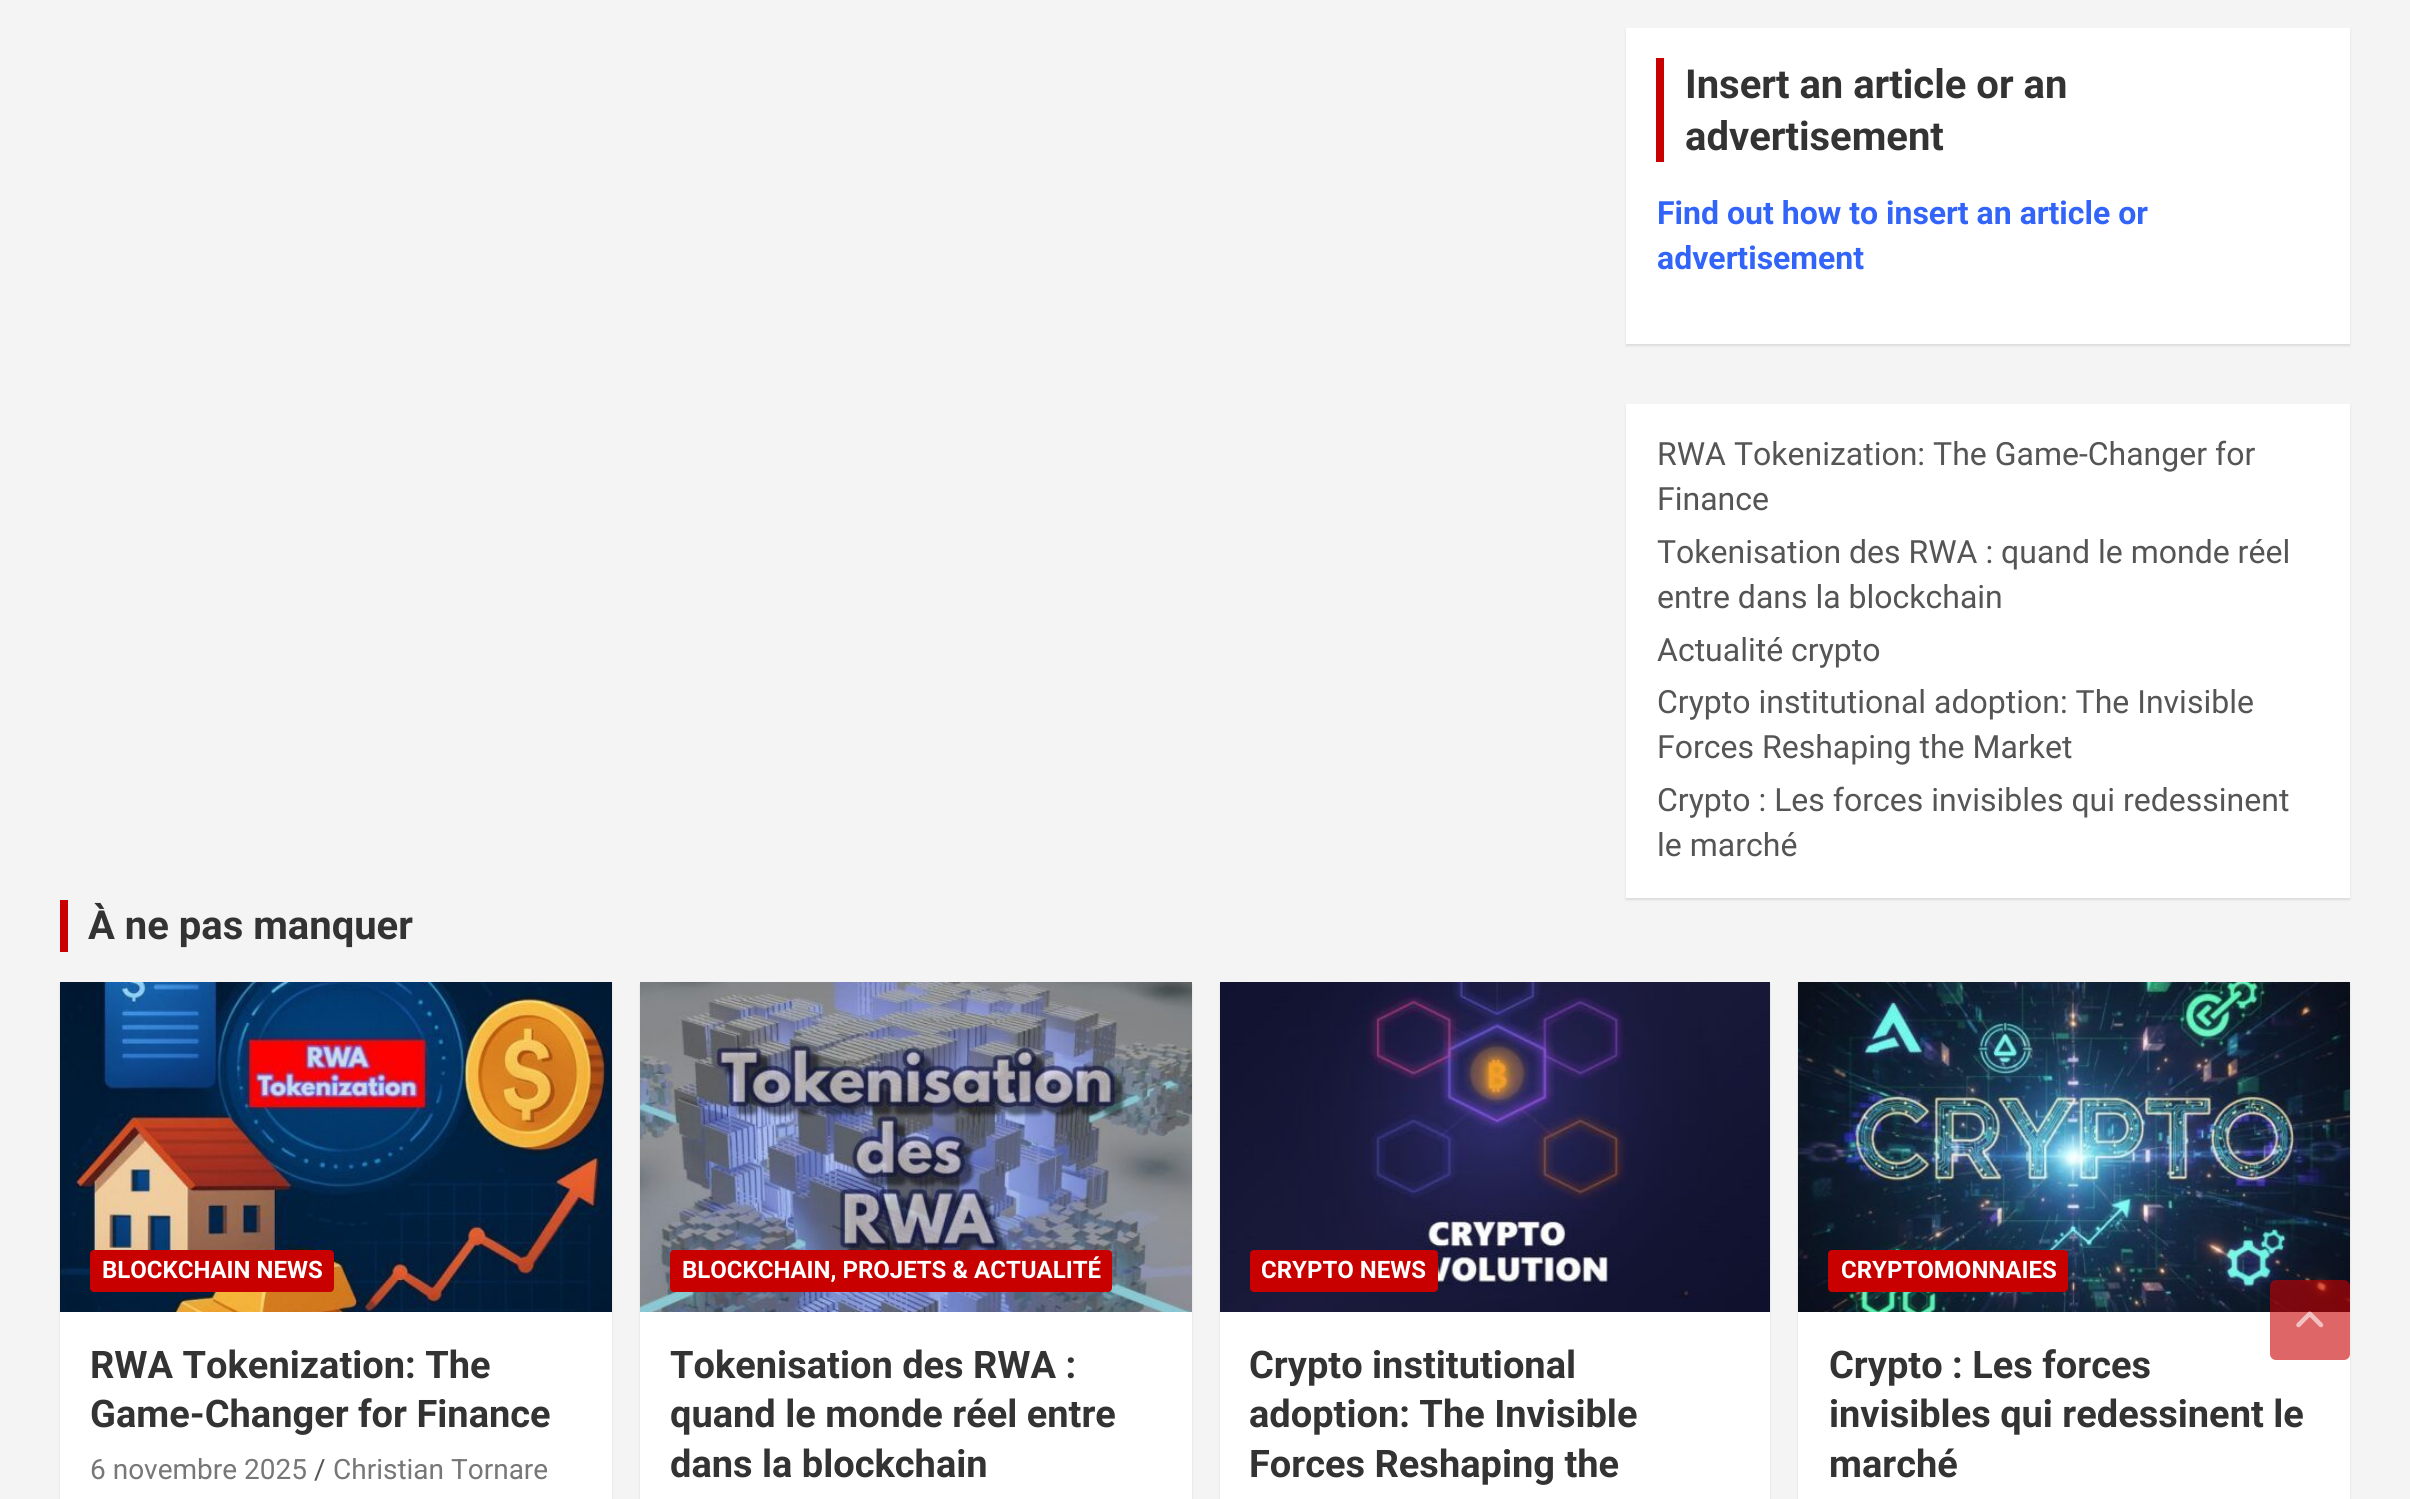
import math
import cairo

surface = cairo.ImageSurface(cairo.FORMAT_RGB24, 2410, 1499)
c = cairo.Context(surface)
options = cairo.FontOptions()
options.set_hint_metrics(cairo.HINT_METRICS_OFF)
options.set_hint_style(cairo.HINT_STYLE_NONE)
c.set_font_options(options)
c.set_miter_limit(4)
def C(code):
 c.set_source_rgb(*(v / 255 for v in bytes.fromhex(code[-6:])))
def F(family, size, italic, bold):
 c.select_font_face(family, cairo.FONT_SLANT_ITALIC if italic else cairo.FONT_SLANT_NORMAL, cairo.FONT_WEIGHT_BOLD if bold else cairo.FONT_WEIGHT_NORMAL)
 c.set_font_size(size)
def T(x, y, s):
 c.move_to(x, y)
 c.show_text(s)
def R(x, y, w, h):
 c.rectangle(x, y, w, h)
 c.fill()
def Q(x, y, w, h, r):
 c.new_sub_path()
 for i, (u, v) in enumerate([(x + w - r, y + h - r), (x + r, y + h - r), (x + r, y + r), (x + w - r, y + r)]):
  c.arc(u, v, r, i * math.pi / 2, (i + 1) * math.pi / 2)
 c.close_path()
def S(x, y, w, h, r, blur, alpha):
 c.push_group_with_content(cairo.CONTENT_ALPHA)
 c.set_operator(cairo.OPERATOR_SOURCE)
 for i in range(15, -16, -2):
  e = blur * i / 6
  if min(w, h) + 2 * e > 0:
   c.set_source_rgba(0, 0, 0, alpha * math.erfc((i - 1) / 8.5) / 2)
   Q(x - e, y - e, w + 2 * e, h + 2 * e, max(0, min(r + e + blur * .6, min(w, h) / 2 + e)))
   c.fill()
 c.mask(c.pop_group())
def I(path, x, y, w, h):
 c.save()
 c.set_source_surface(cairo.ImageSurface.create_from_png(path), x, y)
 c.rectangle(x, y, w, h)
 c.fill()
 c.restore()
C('f4f4f4')
c.paint()
C('000000')
S(1626,30,724,316,0,1,.1)
C('ffffff')
R(1626,28,724,316)
C('c80000')
R(1656,58,8,104)
F('Roboto',40,0,1)
C('333333')
T(1685,98,'Insert an article or an')
T(1685,150,'advertisement')
F('Roboto',32,0,1)
C('3264fa')
T(1657,224,'Find out how to insert an article or')
T(1657,269,'advertisement')
C('000000')
S(1626,406,724,494,0,1,.1)
C('ffffff')
R(1626,404,724,494)
F('Roboto',32,0,0)
C('555555')
T(1657,465,'RWA Tokenization: The Game-Changer for')
T(1657,510,'Finance')
T(1657,563,'Tokenisation des RWA : quand le monde réel')
T(1657,608,'entre dans la blockchain')
T(1657,661,'Actualité crypto')
T(1657,713,'Crypto institutional adoption: The Invisible')
T(1657,758,'Forces Reshaping the Market')
T(1657,811,'Crypto : Les forces invisibles qui redessinent')
T(1657,856,'le marché')
C('c80000')
R(60,900,8,52)
F('Roboto',40,0,1)
C('333333')
T(88,939,'À ne pas manquer')
C('000000')
S(60,984,552,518,0,1,.1)
C('ffffff')
R(60,1312,552,187)
I('1.png',60,982,552,330)
C('c80000')
Q(90,1250,244,42,4)
c.fill()
F('Roboto',24,0,1)
C('ffffff')
T(102,1278,'BLOCKCHAIN NEWS')
F('Roboto',38,0,1)
C('333333')
T(90,1378,'RWA Tokenization: The')
T(90,1427,'Game-Changer for Finance')
F('Roboto',28,0,0)
C('777777')
T(90,1479,'6 novembre 2025')
C('555555')
T(314,1479,'/')
C('777777')
T(333,1479,'Christian Tornare')
C('000000')
S(640,984,552,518,0,1,.1)
C('ffffff')
R(640,1312,552,187)
I('2.png',640,982,552,330)
C('c80000')
Q(670,1250,442,42,4)
c.fill()
F('Roboto',24,0,1)
C('ffffff')
T(682,1278,'BLOCKCHAIN, PROJETS & ACTUALITÉ')
F('Roboto',38,0,1)
C('333333')
T(670,1378,'Tokenisation des RWA :')
T(670,1427,'quand le monde réel entre')
T(670,1477,'dans la blockchain')
C('000000')
S(1220,984,550,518,0,1,.1)
C('ffffff')
R(1220,1312,550,187)
I('3.png',1220,982,550,330)
C('c80000')
Q(1250,1250,188,42,4)
c.fill()
F('Roboto',24,0,1)
C('ffffff')
T(1261,1278,'CRYPTO NEWS')
F('Roboto',38,0,1)
C('333333')
T(1249,1378,'Crypto institutional')
T(1249,1427,'adoption: The Invisible')
T(1249,1477,'Forces Reshaping the')
C('000000')
S(1798,984,552,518,0,1,.1)
C('ffffff')
R(1798,1312,552,187)
I('4.png',1798,982,552,330)
C('c80000')
Q(1828,1250,240,42,4)
c.fill()
F('Roboto',24,0,1)
C('ffffff')
T(1841,1278,'CRYPTOMONNAIES')
F('Roboto',38,0,1)
C('333333')
T(1829,1378,'Crypto : Les forces')
T(1829,1427,'invisibles qui redessinent le')
T(1829,1477,'marché')
c.set_source_rgba(0.784,0,0,0.6)
Q(2270,1280,80,80,6)
c.fill()
I('5.png',2296,1311,28,17)
surface.write_to_png('o.png')
